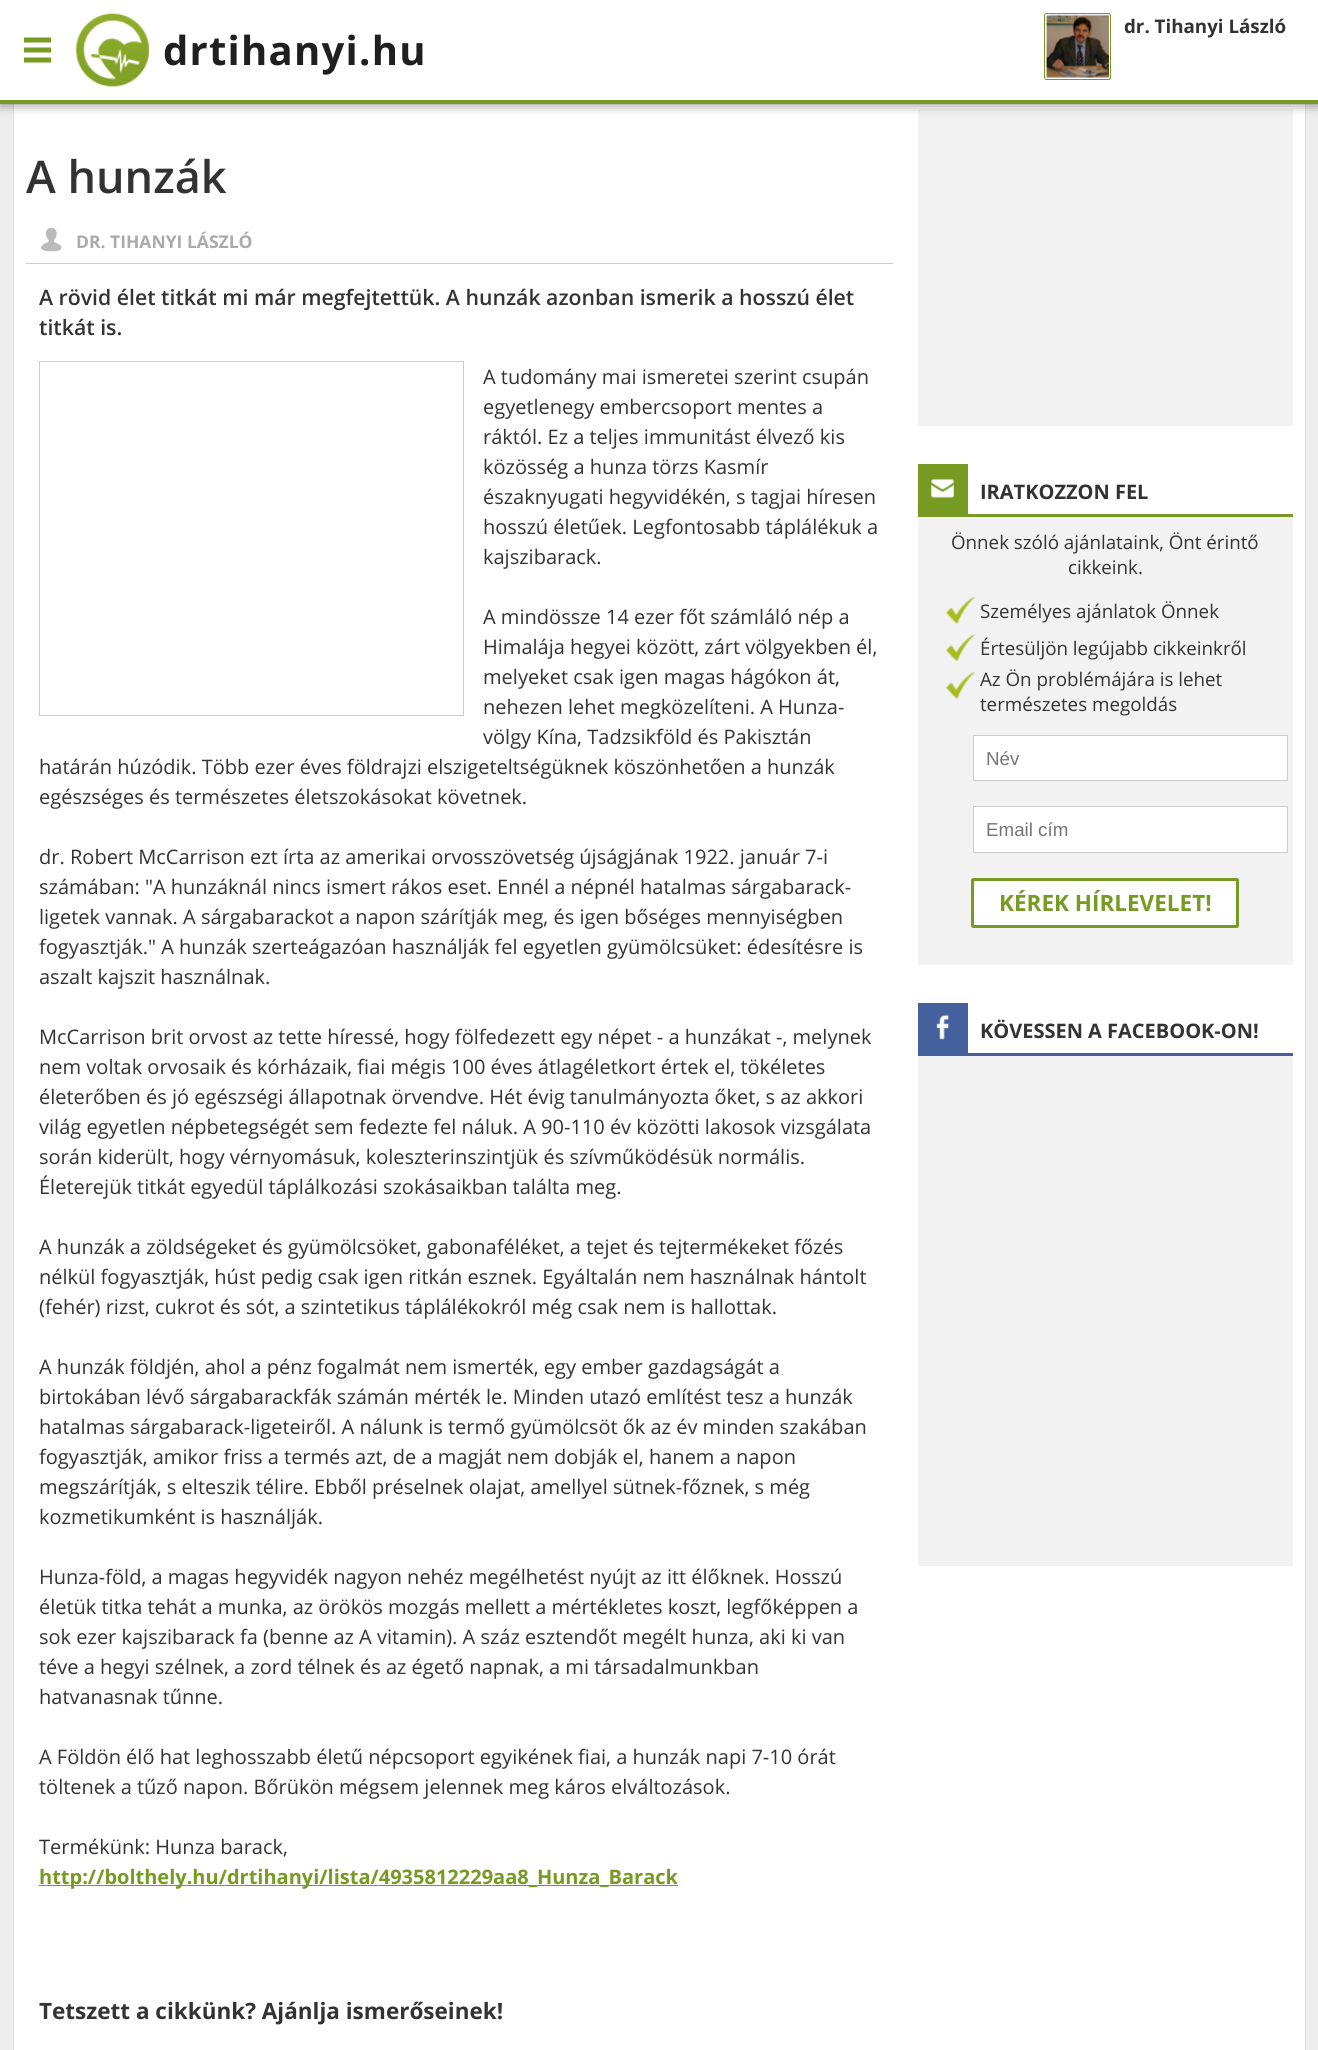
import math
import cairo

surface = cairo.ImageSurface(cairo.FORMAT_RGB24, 1318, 2050)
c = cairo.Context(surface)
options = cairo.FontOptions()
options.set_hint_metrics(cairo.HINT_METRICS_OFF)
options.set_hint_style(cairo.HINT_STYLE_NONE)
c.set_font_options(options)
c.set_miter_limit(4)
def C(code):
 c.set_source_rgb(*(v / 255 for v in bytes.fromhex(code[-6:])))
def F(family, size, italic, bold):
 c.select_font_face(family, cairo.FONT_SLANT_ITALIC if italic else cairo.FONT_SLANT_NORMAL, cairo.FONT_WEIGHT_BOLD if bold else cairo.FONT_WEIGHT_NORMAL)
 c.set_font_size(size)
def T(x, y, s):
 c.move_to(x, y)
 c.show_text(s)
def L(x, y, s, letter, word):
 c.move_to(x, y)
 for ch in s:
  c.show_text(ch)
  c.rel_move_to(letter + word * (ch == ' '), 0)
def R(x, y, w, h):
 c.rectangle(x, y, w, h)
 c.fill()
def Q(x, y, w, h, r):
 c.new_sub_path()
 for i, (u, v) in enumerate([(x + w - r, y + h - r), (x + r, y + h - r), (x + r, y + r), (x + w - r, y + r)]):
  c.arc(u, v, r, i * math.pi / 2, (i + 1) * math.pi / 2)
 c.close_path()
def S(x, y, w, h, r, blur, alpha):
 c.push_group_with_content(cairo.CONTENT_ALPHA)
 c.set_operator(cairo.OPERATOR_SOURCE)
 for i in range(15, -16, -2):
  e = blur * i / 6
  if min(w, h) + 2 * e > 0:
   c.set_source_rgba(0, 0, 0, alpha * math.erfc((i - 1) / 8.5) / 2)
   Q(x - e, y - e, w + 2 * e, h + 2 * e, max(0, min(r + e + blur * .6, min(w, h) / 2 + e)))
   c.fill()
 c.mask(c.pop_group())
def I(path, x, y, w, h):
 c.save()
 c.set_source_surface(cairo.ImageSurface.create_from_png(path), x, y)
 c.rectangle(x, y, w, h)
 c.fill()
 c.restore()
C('eeeeee')
c.paint()
C('ffffff')
R(14,104,1291,1946)
C('dddddd')
R(1305,104,1,1946)
R(13,104,1,1946)
C('f2f2f2')
R(918,109,375,317)
C('000000')
S(0,0,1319,104,0,6,.5)
C('ffffff')
R(0,0,1318,100)
C('769a22')
R(0,100,1318,4)
Q(1044.5,13.5,66,66,2)
c.set_line_width(1)
c.stroke()
I('1.png',1045,14,64,64)
F('Open Sans',18.75,0,1)
C('333333')
T(1124,33,'dr. Tihanyi László')
I('2.png',23,37,29,26)
I('3.png',76,13,74,74)
F('Open Sans',40,0,1)
C('1f1f1f')
L(163,65,'drtihanyi.hu',1.25,0)
F('Open Sans SemiBold',45,0,0)
C('333333')
T(26,193,'A hunzák')
C('cccccc')
R(26,263,867,1)
I('4.png',40,227,22,25)
F('Open Sans',17.5,0,1)
C('aaaaaa')
T(76,248,'DR. TIHANYI LÁSZLÓ')
F('Open Sans SemiBold',21.25,0,0)
C('333333')
T(39,305,'A rövid élet titkát mi már megfejtettük. A hunzák azonban ismerik a hosszú élet')
T(39,335,'titkát is.')
c.rectangle(39.5,361.5,424,354)
C('cccccc')
c.stroke()
F('Open Sans',20,0,0)
C('333333')
T(483,384,'A tudomány mai ismeretei szerint csupán')
T(483,414,'egyetlenegy embercsoport mentes a')
T(483,444,'ráktól. Ez a teljes immunitást élvező kis')
T(483,474,'közösség a hunza törzs Kasmír')
T(483,504,'északnyugati hegyvidékén, s tagjai híresen')
T(483,534,'hosszú életűek. Legfontosabb táplálékuk a')
T(483,564,'kajszibarack.')
T(483,624,'A mindössze 14 ezer főt számláló nép a')
T(483,654,'Himalája hegyei között, zárt völgyekben él,')
T(483,684,'melyeket csak igen magas hágókon át,')
T(483,714,'nehezen lehet megközelíteni. A Hunza-')
T(483,744,'völgy Kína, Tadzsikföld és Pakisztán')
T(39,774,'határán húzódik. Több ezer éves földrajzi elszigeteltségüknek köszönhetően a hunzák')
T(39,804,'egészséges és természetes életszokásokat követnek.')
T(39,864,'dr. Robert McCarrison ezt írta az amerikai orvosszövetség újságjának 1922. január 7-i')
T(39,894,'számában: "A hunzáknál nincs ismert rákos eset. Ennél a népnél hatalmas sárgabarack-')
T(39,924,'ligetek vannak. A sárgabarackot a napon szárítják meg, és igen bőséges mennyiségben')
T(39,954,'fogyasztják." A hunzák szerteágazóan használják fel egyetlen gyümölcsüket: édesítésre is')
T(39,984,'aszalt kajszit használnak.')
T(39,1044,'McCarrison brit orvost az tette híressé, hogy fölfedezett egy népet - a hunzákat -, melynek')
T(39,1074,'nem voltak orvosaik és kórházaik, fiai mégis 100 éves átlagéletkort értek el, tökéletes')
T(39,1104,'életerőben és jó egészségi állapotnak örvendve. Hét évig tanulmányozta őket, s az akkori')
T(39,1134,'világ egyetlen népbetegségét sem fedezte fel náluk. A 90-110 év közötti lakosok vizsgálata')
T(39,1164,'során kiderült, hogy vérnyomásuk, koleszterinszintjük és szívműködésük normális.')
T(39,1194,'Életerejük titkát egyedül táplálkozási szokásaikban találta meg.')
T(39,1254,'A hunzák a zöldségeket és gyümölcsöket, gabonaféléket, a tejet és tejtermékeket főzés')
T(39,1284,'nélkül fogyasztják, húst pedig csak igen ritkán esznek. Egyáltalán nem használnak hántolt')
T(39,1314,'(fehér) rizst, cukrot és sót, a szintetikus táplálékokról még csak nem is hallottak.')
T(39,1374,'A hunzák földjén, ahol a pénz fogalmát nem ismerték, egy ember gazdagságát a')
T(39,1404,'birtokában lévő sárgabarackfák számán mérték le. Minden utazó említést tesz a hunzák')
T(39,1434,'hatalmas sárgabarack-ligeteiről. A nálunk is termő gyümölcsöt ők az év minden szakában')
T(39,1464,'fogyasztják, amikor friss a termés azt, de a magját nem dobják el, hanem a napon')
T(39,1494,'megszárítják, s elteszik télire. Ebből préselnek olajat, amellyel sütnek-főznek, s még')
T(39,1524,'kozmetikumként is használják.')
T(39,1584,'Hunza-föld, a magas hegyvidék nagyon nehéz megélhetést nyújt az itt élőknek. Hosszú')
T(39,1614,'életük titka tehát a munka, az örökös mozgás mellett a mértékletes koszt, legfőképpen a')
T(39,1644,'sok ezer kajszibarack fa (benne az A vitamin). A száz esztendőt megélt hunza, aki ki van')
T(39,1674,'téve a hegyi szélnek, a zord télnek és az égető napnak, a mi társadalmunkban')
T(39,1704,'hatvanasnak tűnne.')
T(39,1764,'A Földön élő hat leghosszabb életű népcsoport egyikének fiai, a hunzák napi 7-10 órát')
T(39,1794,'töltenek a tűző napon. Bőrükön mégsem jelennek meg káros elváltozások.')
T(39,1854,'Termékünk: Hunza barack,')
C('769a22')
R(39,1885,639,1)
F('Open Sans',20,0,1)
T(39,1884,'http://bolthely.hu/drtihanyi/lista/4935812229aa8_Hunza_Barack')
F('Open Sans',22.5,0,1)
C('333333')
T(39,2019,'Tetszett a cikkünk? Ajánlja ismerőseinek!')
C('f2f2f2')
R(918,517,375,448)
C('769a22')
R(918,514,375,3)
R(918,464,50,50)
I('5.png',931,478,23,20)
F('Open Sans',20,0,1)
C('333333')
T(980,499,'IRATKOZZON FEL')
F('Open Sans',18.75,0,0)
T(951,549,'Önnek szóló ajánlataink, Önt érintő')
T(1068,574,'cikkeink.')
I('6.png',946,596,30,28)
T(980,618,'Személyes ajánlatok Önnek')
I('7.png',946,634,30,27)
T(980,655,'Értesüljön legújabb cikkeinkről')
I('6.png',946,671,30,28)
T(980,686,'Az Ön problémájára is lehet')
T(980,711,'természetes megoldás')
C('ffffff')
c.rectangle(973.5,735.5,314,45)
c.fill_preserve()
C('cccccc')
c.stroke()
F('Liberation Sans',18.75,0,0)
C('757575')
T(986,765,'Név')
C('ffffff')
c.rectangle(973.5,806.5,314,46)
c.fill_preserve()
C('cccccc')
c.stroke()
C('757575')
T(986,836,'Email cím')
C('ffffff')
Q(972.5,879.5,265,47,1)
c.fill_preserve()
C('769a22')
c.set_line_width(3)
c.stroke()
F('Open Sans',22.5,0,1)
T(999,911,'KÉREK HÍRLEVELET!')
C('f2f2f2')
R(918,1056,375,510)
C('45619d')
R(918,1053,375,3)
R(918,1003,50,50)
I('8.png',936,1014,13,26)
F('Open Sans',20,0,1)
C('333333')
T(980,1038,'KÖVESSEN A FACEBOOK-ON!')
surface.write_to_png('o.png')
